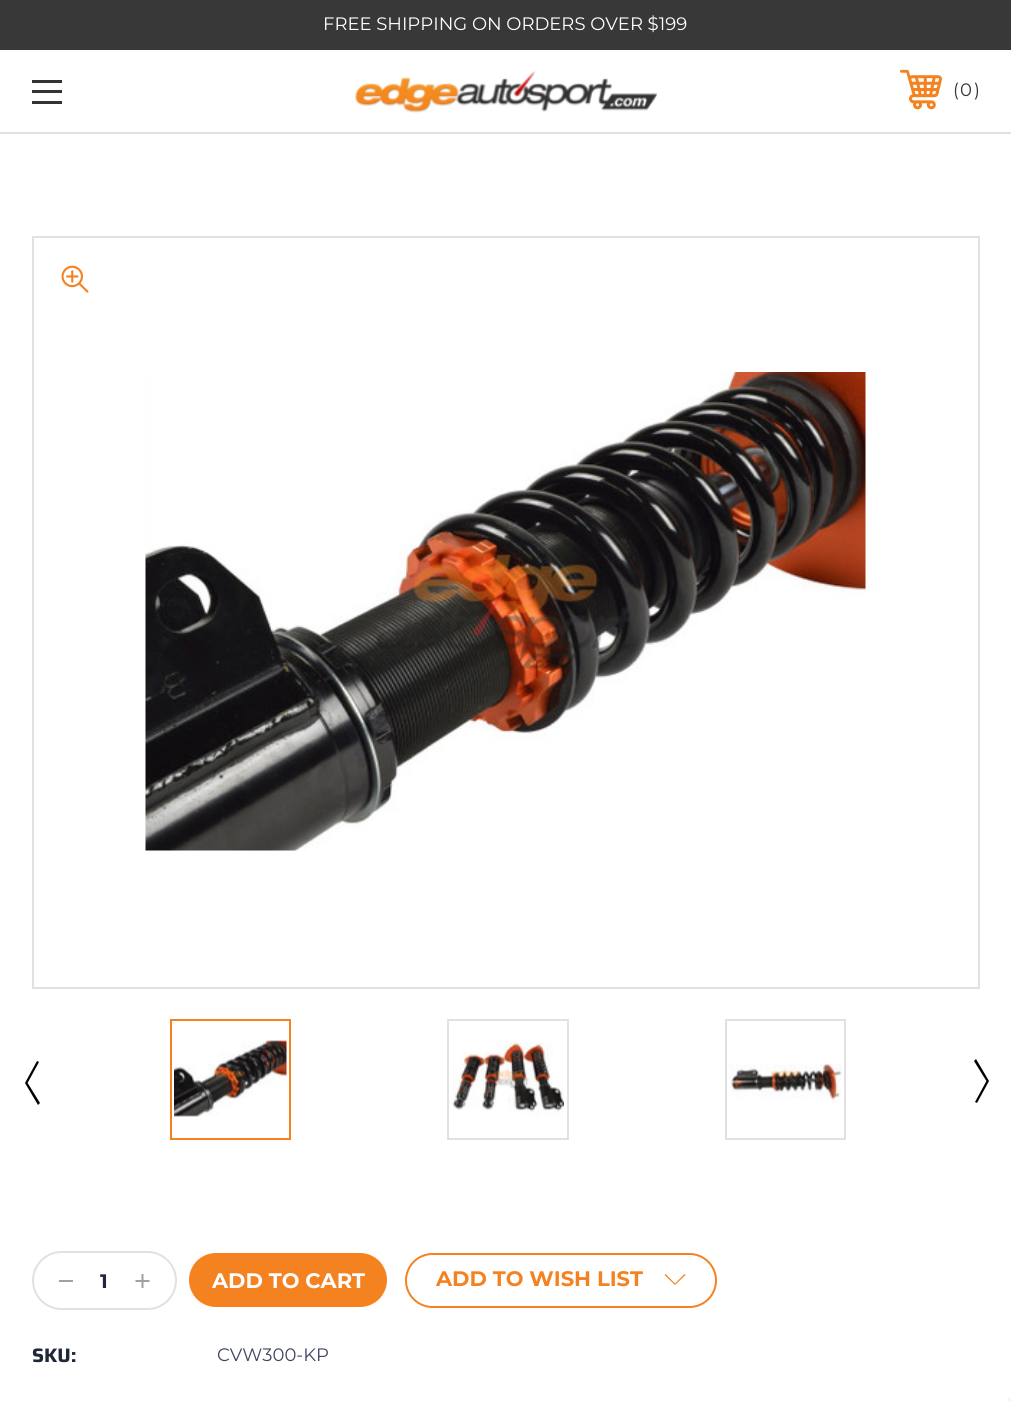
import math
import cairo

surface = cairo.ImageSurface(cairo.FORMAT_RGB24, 1011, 1401)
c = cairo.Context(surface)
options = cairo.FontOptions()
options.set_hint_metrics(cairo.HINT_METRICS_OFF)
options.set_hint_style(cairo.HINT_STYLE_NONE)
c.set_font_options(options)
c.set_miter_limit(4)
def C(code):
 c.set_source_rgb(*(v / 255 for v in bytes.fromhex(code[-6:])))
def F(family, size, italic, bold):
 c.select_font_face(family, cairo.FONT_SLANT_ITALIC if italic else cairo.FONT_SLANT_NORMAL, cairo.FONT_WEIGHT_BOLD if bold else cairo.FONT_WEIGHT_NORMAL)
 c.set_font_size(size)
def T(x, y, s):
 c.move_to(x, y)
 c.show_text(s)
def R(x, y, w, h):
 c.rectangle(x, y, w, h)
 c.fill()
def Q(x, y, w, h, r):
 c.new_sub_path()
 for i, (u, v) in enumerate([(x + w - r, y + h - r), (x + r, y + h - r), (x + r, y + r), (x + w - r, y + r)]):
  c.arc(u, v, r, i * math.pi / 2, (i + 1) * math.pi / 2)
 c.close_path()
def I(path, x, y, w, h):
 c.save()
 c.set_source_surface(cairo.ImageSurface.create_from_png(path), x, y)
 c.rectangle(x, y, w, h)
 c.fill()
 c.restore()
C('ffffff')
c.paint()
C('383838')
R(0,0,1011,50)
F('Montserrat',18,0,0)
C('ffffff')
T(323,30,'FREE SHIPPING ON ORDERS OVER $199')
C('e1e1e1')
R(0,132,1011,2)
C('333333')
R(32,90,30,3)
R(32,80,30,3)
R(32,101,30,3)
I('1.png',355,71,302,42)
I('2.png',900,69,42,41)
T(953,96,'(')
T(960,96,'0')
T(974,96,')')
c.rectangle(33,237,946,751)
C('e1e1e1')
c.stroke()
I('3.png',145,372,721,479)
I('4.png',61,265,28,28)
C('000000')
c.new_path()
c.move_to(37,1061)
c.line_to(39,1062)
c.line_to(27,1084)
c.line_to(25,1083)
c.close_path()
c.move_to(40,1103)
c.line_to(38,1105)
c.line_to(25,1083)
c.line_to(27,1082)
c.close_path()
c.fill()
c.rectangle(171,1020,119,119)
C('f58220')
c.stroke()
I('5.png',174,1040,113,77)
c.rectangle(448,1020,120,119)
C('e1e1e1')
c.stroke()
I('6.png',451,1040,113,76)
c.rectangle(726,1020,119,119)
c.stroke()
I('7.png',729,1063,113,40)
C('000000')
c.new_path()
c.move_to(977,1103)
c.line_to(975,1102)
c.line_to(987,1080)
c.line_to(989,1081)
c.close_path()
c.move_to(974,1061)
c.line_to(976,1059)
c.line_to(989,1081)
c.line_to(987,1082)
c.close_path()
c.fill()
Q(33,1252,143,57,28.5)
C('e1e1e1')
c.stroke()
C('a1a1a1')
R(59,1280,14,2)
F('Montserrat',19.5,0,1)
C('202738')
T(100,1288,'1')
I('8.png',135,1274,15,14)
C('f58220')
Q(190,1254,196,52,26)
c.fill_preserve()
c.stroke()
F('Montserrat',21,0,1)
C('ffffff')
T(212,1288,'ADD TO CART')
Q(406,1254,310,53,26.5)
C('f58220')
c.stroke()
T(436,1286,'ADD TO WISH LIST')
c.set_fill_rule(cairo.FILL_RULE_EVEN_ODD)
c.new_path()
c.move_to(675,1283.5)
c.line_to(684.5,1274)
c.line_to(685.5,1275)
c.line_to(675,1285)
c.line_to(664.5,1275)
c.line_to(665.5,1274)
c.close_path()
c.fill()
F('Saira',19.5,0,1)
C('202738')
T(32,1362,'SKU:')
F('Montserrat',18,0,0)
C('3f4562')
T(217,1361,'CVW300-KP')
C('f5f5f5')
R(1008,1398,3,3)
surface.write_to_png('o.png')
